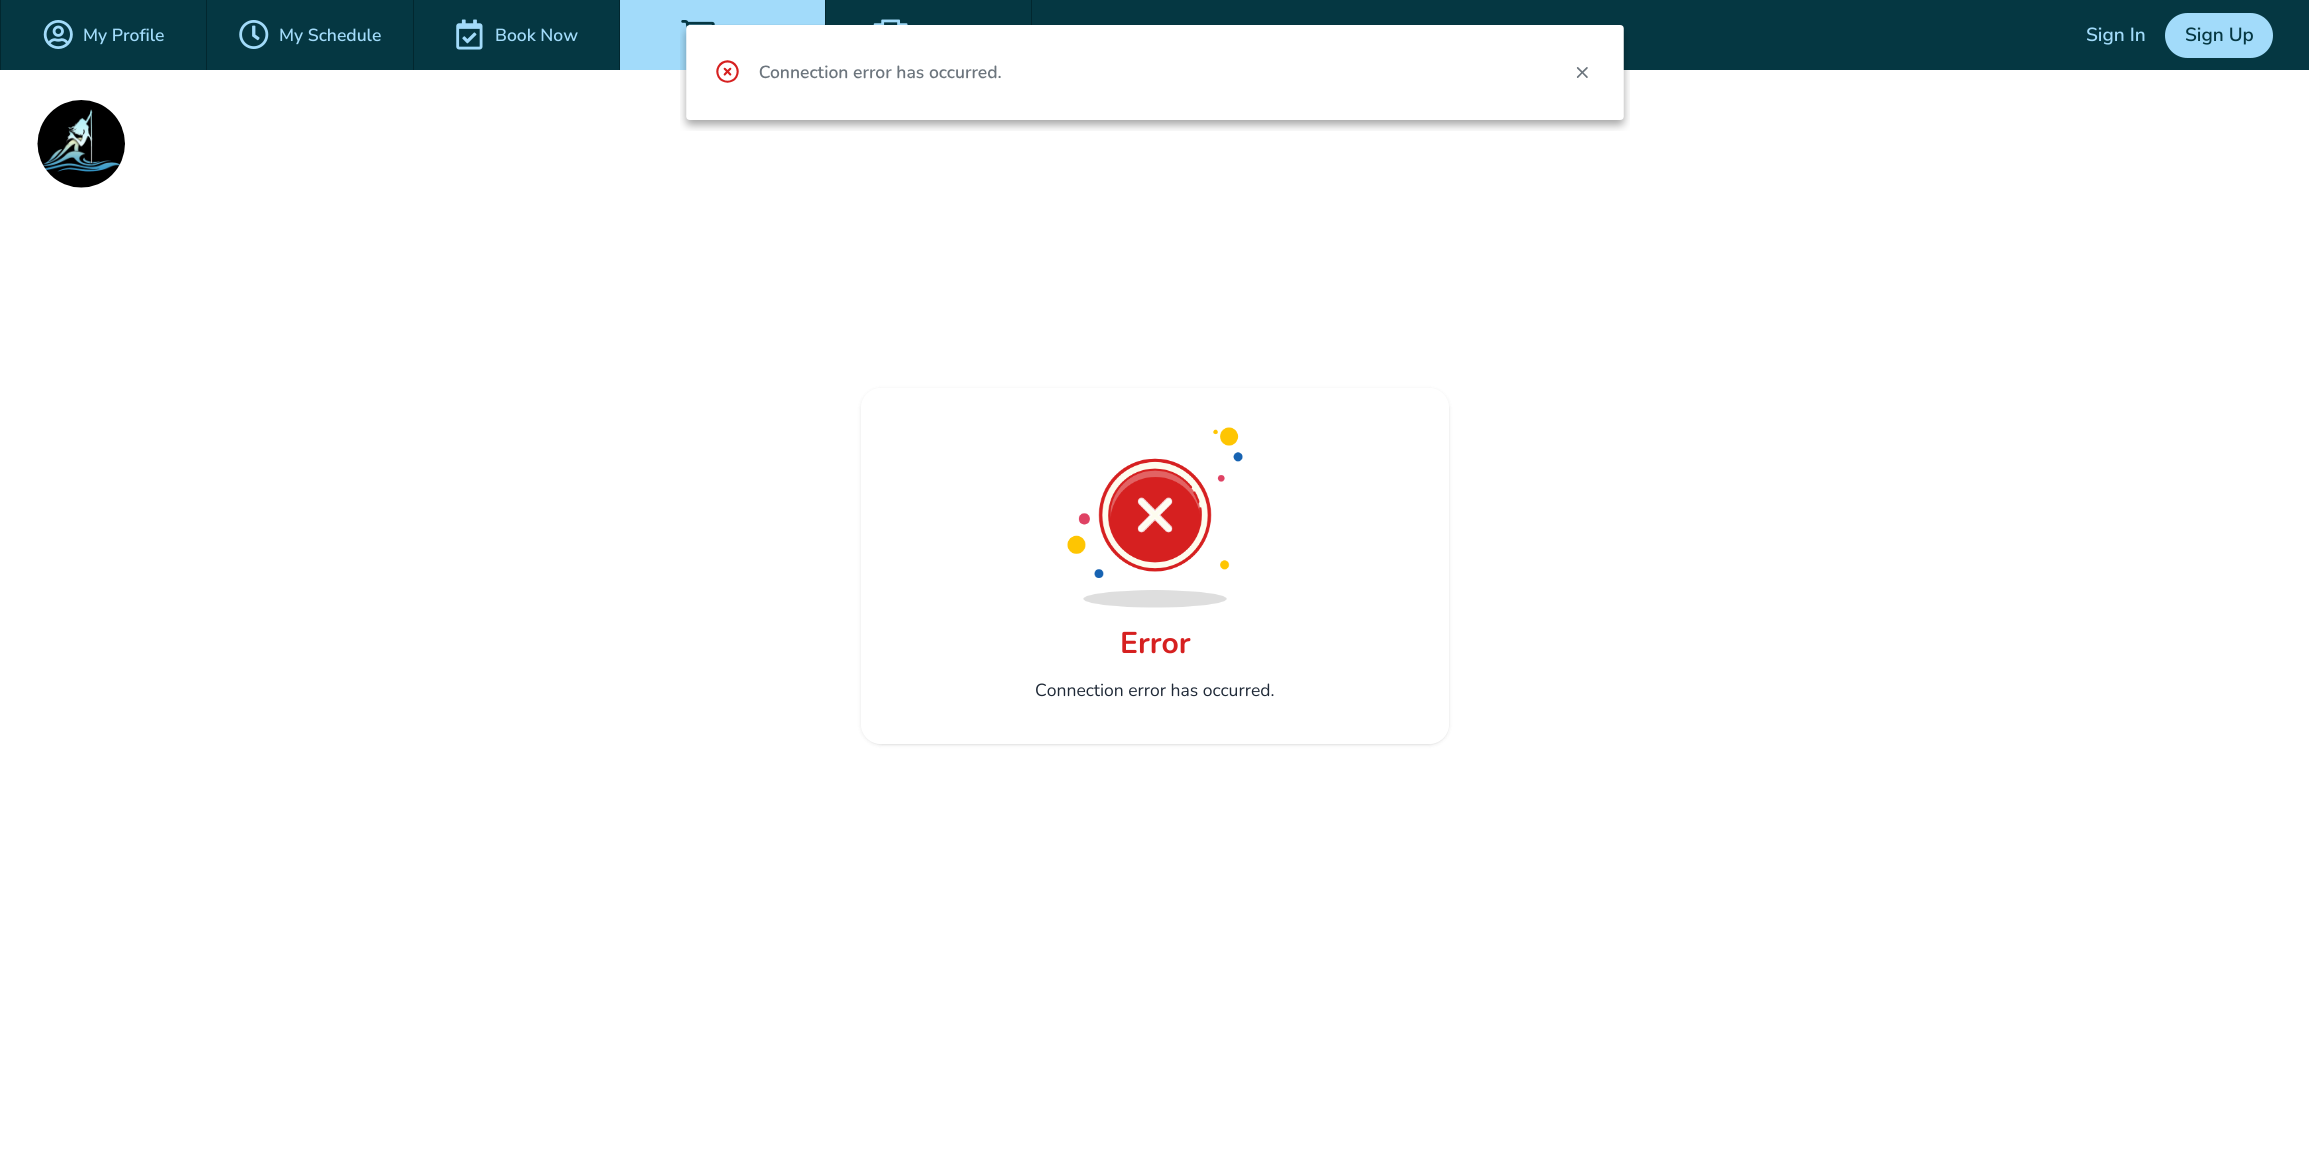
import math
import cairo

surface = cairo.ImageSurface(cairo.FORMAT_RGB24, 2309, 1159)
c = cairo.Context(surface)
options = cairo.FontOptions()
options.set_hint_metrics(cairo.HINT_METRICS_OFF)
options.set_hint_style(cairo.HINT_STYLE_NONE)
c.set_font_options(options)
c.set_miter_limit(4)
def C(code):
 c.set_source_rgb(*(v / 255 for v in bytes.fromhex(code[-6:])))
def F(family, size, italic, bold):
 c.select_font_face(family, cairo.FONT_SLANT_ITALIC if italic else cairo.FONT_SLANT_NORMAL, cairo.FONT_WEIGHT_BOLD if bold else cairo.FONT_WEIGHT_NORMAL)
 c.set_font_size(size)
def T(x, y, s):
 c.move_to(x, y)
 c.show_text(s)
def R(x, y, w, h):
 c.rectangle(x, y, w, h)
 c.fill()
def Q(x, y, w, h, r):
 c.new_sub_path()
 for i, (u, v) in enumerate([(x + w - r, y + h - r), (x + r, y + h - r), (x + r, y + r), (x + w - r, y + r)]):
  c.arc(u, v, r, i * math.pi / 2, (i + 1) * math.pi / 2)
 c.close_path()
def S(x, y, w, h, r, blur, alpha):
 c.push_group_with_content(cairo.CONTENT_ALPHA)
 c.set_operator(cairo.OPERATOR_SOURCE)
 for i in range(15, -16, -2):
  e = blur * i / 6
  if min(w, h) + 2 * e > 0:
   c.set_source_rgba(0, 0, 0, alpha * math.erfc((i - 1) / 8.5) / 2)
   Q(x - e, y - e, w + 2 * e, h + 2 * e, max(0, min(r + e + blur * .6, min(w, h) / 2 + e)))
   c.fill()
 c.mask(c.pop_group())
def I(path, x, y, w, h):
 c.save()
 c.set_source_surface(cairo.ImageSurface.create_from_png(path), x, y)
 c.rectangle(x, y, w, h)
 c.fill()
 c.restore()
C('ffffff')
c.paint()
C('053742')
R(1,0,2308,70)
C('02272f')
R(825,0,1,25)
C('a2dbfa')
R(620,0,205,70)
I('2.png',681,20,34,10)
C('02272f')
R(1031,0,1,25)
I('3.png',873,19,35,6)
I('1.png',680,24,950,107)
R(0,0,1,70)
R(206,0,1,70)
I('4.png',43,20,30,29)
F('Nunito Sans SemiBold',17.5,0,0)
C('a2dbfa')
T(83,41,'My Profile')
C('02272f')
R(413,0,1,70)
I('5.png',239,20,30,29)
C('a2dbfa')
T(279,41,'My Schedule')
C('02272f')
R(619,0,1,70)
I('6.png',456,19,27,31)
C('a2dbfa')
T(495,41,'Book Now')
F('Nunito Sans SemiBold',19,0,0)
T(2086,41,'Sign In')
Q(2165,13,108,45,22.5)
c.fill()
C('053742')
T(2185,41,'Sign Up')
I('7.png',37,100,88,88)
c.save()
c.set_fill_rule(cairo.FILL_RULE_EVEN_ODD)
c.new_path()
c.move_to(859,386)
c.line_to(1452,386)
c.line_to(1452,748)
c.line_to(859,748)
c.close_path()
c.move_to(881,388)
c.line_to(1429,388)
c.curve_to(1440,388,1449,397,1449,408)
c.line_to(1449,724)
c.curve_to(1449,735,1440,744,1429,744)
c.line_to(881,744)
c.curve_to(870,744,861,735,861,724)
c.line_to(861,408)
c.curve_to(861,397,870,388,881,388)
c.close_path()
c.clip()
C('000000')
S(863,390,585,354,19,1,.1)
c.restore()
c.save()
c.set_fill_rule(cairo.FILL_RULE_EVEN_ODD)
c.new_path()
c.move_to(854,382)
c.line_to(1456,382)
c.line_to(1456,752)
c.line_to(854,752)
c.close_path()
c.move_to(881,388)
c.line_to(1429,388)
c.curve_to(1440,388,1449,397,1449,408)
c.line_to(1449,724)
c.curve_to(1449,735,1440,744,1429,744)
c.line_to(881,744)
c.curve_to(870,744,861,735,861,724)
c.line_to(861,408)
c.curve_to(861,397,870,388,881,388)
c.close_path()
c.clip()
C('000000')
S(861,389,588,356,20,2,.1)
c.restore()
I('8.png',1067,427,176,181)
F('Nunito',30,0,1)
C('d62020')
T(1120,653,'Error')
F('Nunito',17.5,0,0)
C('1f2937')
T(1035,696,'Connection error has occurred.')
surface.write_to_png('o.png')
